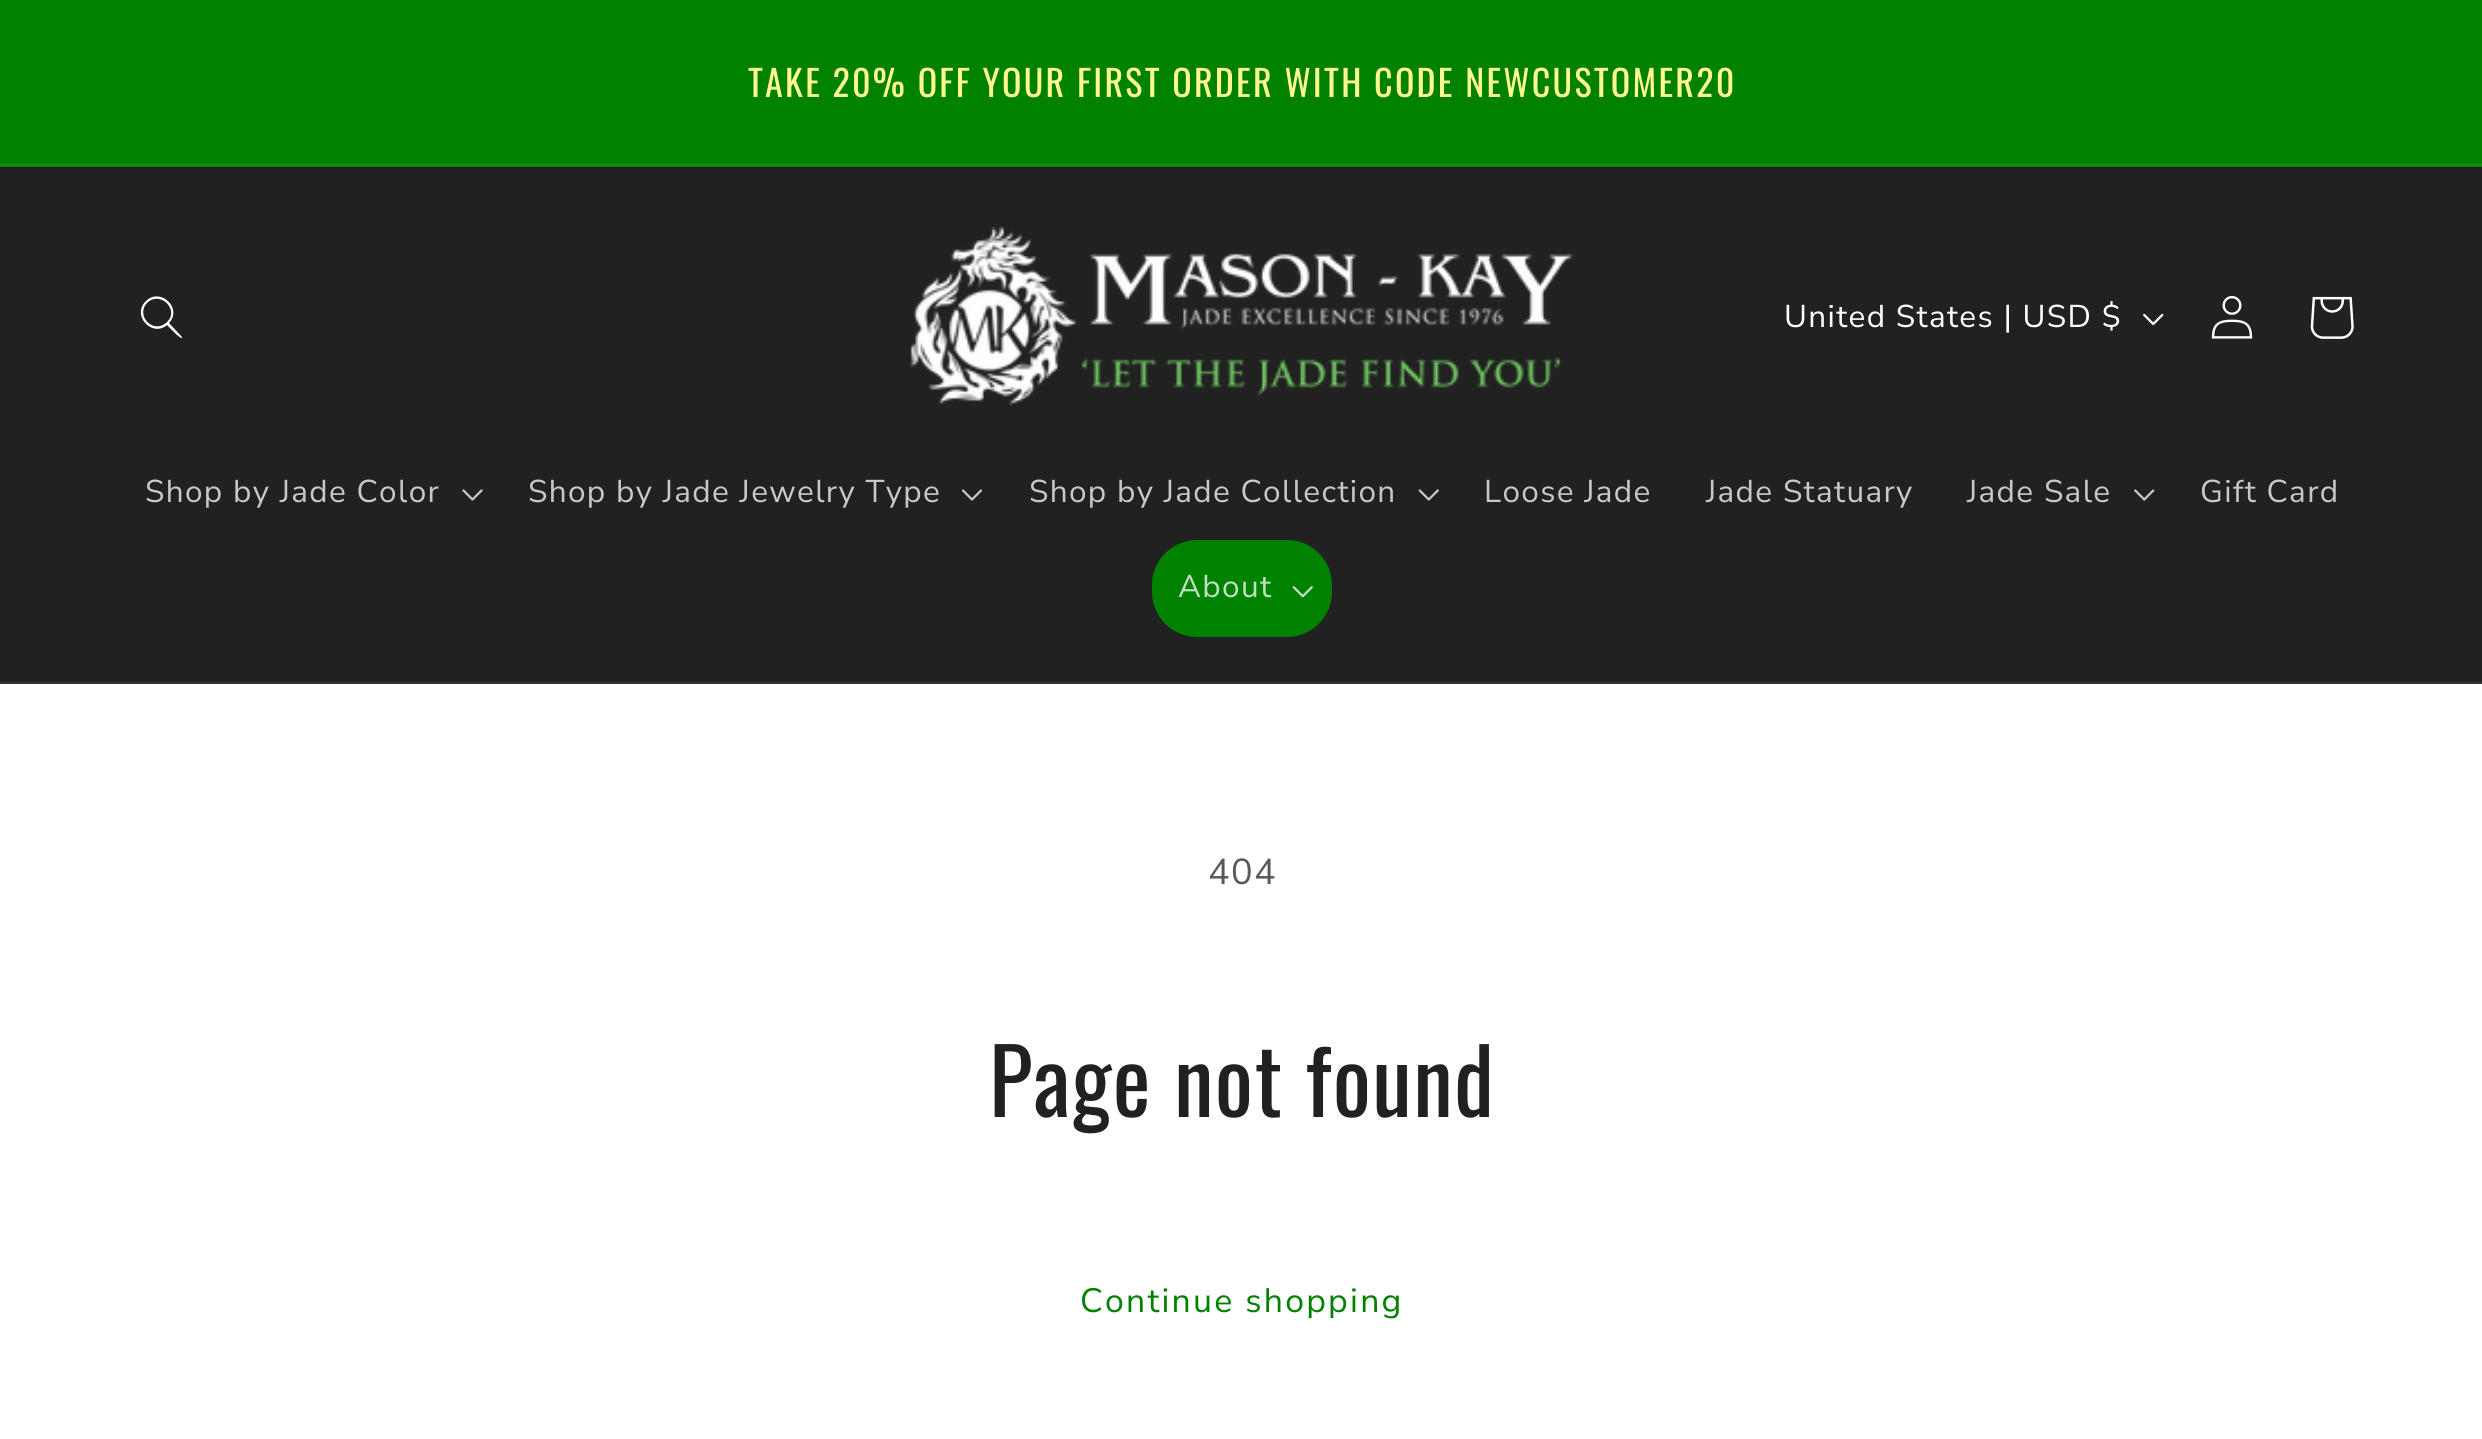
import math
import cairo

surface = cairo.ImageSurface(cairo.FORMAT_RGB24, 2482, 1439)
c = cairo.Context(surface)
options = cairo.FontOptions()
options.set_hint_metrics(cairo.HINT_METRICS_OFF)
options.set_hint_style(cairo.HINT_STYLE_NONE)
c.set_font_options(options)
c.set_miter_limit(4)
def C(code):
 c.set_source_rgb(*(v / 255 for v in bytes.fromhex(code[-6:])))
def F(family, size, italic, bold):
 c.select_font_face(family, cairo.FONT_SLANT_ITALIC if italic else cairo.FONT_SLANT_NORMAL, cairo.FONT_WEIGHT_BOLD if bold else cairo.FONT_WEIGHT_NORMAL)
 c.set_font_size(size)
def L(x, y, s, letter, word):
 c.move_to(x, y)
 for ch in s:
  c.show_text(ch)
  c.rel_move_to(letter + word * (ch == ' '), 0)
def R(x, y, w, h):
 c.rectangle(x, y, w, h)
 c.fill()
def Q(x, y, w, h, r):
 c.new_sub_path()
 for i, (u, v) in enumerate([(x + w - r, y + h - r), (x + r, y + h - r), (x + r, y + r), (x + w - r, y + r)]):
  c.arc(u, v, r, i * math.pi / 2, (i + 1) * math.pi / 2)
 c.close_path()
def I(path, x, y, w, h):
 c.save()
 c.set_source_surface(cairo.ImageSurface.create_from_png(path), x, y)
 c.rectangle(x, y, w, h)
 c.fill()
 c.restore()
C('ffffff')
c.paint()
C('008100')
R(0,0,2482,167)
C('148b14')
R(0,164,2482,2)
F('Oswald',36,0,0)
C('fff890')
L(748,97,'TAKE 20% OFF YOUR FIRST ORDER WITH CODE NEWCUSTOMER20',2.25,0)
C('212121')
R(0,167,2482,515)
C('333333')
R(0,682,2482,2)
C('ffffff')
c.set_fill_rule(cairo.FILL_RULE_EVEN_ODD)
c.new_path()
c.move_to(167,322)
c.curve_to(154,335,135,316,147,303)
c.curve_to(160,290,180,310,167,322)
c.close_path()
c.move_to(167,325)
c.curve_to(152,338,131,315,146,301)
c.curve_to(160,287,183,308,169,323)
c.line_to(182,337)
c.line_to(182,338)
c.curve_to(180,339,169,327,167,325)
c.close_path()
c.fill()
I('1.png',909,227,665,178)
F('Nunito Sans',31.5,0,0)
L(1784,327,'United States | USD $',1.35,0)
I('2.png',2143,313,21,13)
I('3.png',2211,295,42,44)
I('4.png',2310,296,44,43)
C('c8c8c8')
L(145,502,'Shop by Jade Color',1.35,0)
I('5.png',462,489,21,12)
L(528,502,'Shop by Jade Jewelry Type',1.35,0)
I('6.png',961,489,22,12)
L(1029,502,'Shop by Jade Collection',1.35,0)
I('7.png',1418,489,21,12)
L(1484,502,'Loose Jade',1.35,0)
L(1706,502,'Jade Statuary',1.35,0)
L(1967,502,'Jade Sale',1.35,0)
I('8.png',2134,489,21,12)
L(2200,502,'Gift Card',1.35,0)
C('008100')
Q(1152,540,180,97,45)
c.fill()
C('bfe0bf')
L(1178,597,'About',1.35,0)
I('9.png',1292,586,21,12)
F('Nunito Sans',36,0,0)
C('595959')
L(1208,884,'404',1.35,0)
F('Oswald',90,0,0)
C('212121')
L(989,1117,'Page not found',1.35,0)
F('Nunito Sans',33.75,0,0)
C('008100')
L(1080,1312,'Continue shopping',2.25,0)
surface.write_to_png('o.png')
